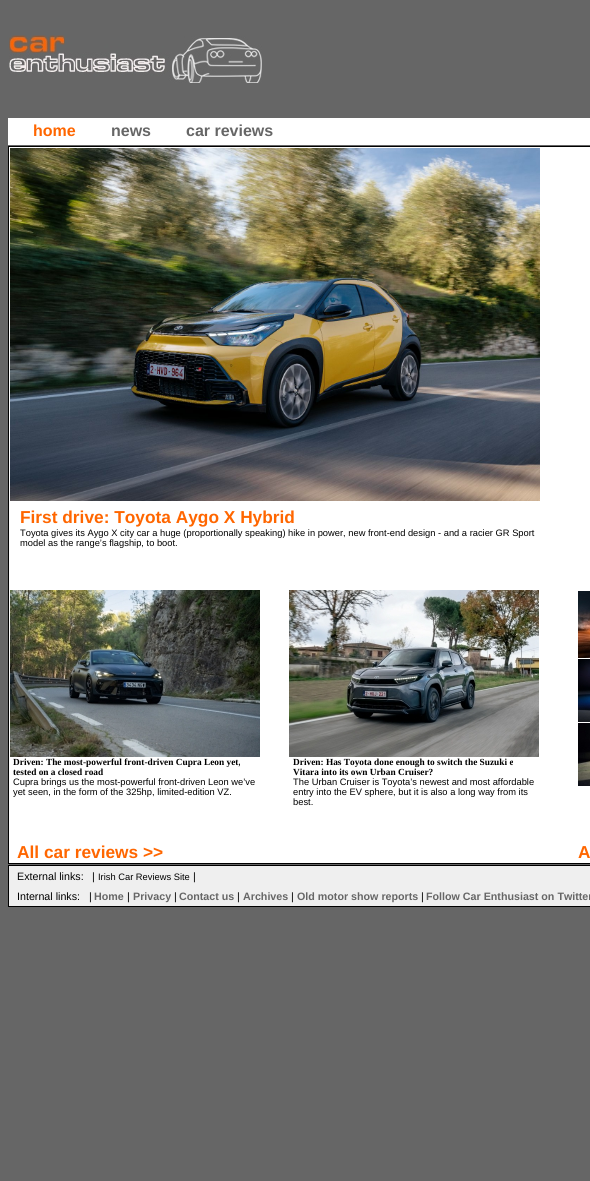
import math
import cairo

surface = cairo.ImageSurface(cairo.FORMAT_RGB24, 590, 1181)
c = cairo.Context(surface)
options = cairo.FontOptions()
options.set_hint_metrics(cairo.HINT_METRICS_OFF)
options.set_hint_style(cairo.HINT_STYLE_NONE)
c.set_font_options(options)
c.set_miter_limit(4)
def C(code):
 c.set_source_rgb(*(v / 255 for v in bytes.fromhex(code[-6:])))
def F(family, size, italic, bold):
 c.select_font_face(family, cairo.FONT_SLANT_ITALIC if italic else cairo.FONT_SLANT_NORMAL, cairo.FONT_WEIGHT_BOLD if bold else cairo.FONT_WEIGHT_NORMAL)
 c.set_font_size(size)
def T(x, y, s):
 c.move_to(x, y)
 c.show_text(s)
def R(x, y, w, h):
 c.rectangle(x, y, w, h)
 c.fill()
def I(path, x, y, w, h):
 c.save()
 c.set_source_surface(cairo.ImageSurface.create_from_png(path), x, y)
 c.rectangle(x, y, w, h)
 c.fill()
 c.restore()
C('666666')
c.paint()
I('1.png',9,35,253,48)
C('ffffff')
R(8,118,582,27)
F('Liberation Sans',16,0,1)
C('ff6600')
T(33,136,'home')
C('666666')
T(111,136,'news')
T(186,136,'car reviews')
C('000000')
R(8,146,582,718)
C('ffffff')
R(9,147,581,716)
I('2.png',10,148,530,353)
F('Liberation Sans',17.3,0,1)
C('ff6600')
T(20,523,'First drive: Toyota Aygo X Hybrid')
F('Liberation Sans',9.33,0,0)
C('000000')
T(20,536,'Toyota gives its Aygo X city car a huge (proportionally speaking) hike in power, new front-end design - and a racier GR Sport')
T(20,546,'model as the range’s flagship, to boot.')
I('3.png',10,590,250,167)
F('Liberation Serif',9.33,0,1)
T(13,765,'Driven: The most-powerful front-driven Cupra Leon yet,')
T(13,775,'tested on a closed road')
F('Liberation Sans',9.33,0,0)
T(13,785,'Cupra brings us the most-powerful front-driven Leon we’ve')
T(13,795,'yet seen, in the form of the 325hp, limited-edition VZ.')
I('4.png',289,590,250,167)
F('Liberation Serif',9.33,0,1)
T(293,765,'Driven: Has Toyota done enough to switch the Suzuki e')
T(293,775,'Vitara into its own Urban Cruiser?')
F('Liberation Sans',9.33,0,0)
T(293,785,'The Urban Cruiser is Toyota’s newest and most affordable')
T(293,795,'entry into the EV sphere, but it is also a long way from its')
T(293,805,'best.')
I('5.png',578,591,12,67)
I('6.png',578,659,12,63)
I('7.png',578,723,12,63)
F('Liberation Sans',17.3,0,1)
C('ff6600')
T(17,858,'All car reviews >>')
T(578,858,'A')
C('000000')
R(8,865,582,42)
C('efefef')
R(9,866,581,40)
F('Liberation Sans',10.7,0,0)
C('000000')
T(17,880,'External links:')
T(92,880,'|')
F('Liberation Sans',9.33,0,0)
T(98,880,'Irish Car Reviews Site')
F('Liberation Sans',10.7,0,0)
T(193,880,'|')
T(17,900,'Internal links:')
T(89,900,'|')
F('Liberation Sans',10.7,0,1)
C('666666')
T(94,900,'Home')
F('Liberation Sans',10.7,0,0)
C('000000')
T(127,900,'|')
F('Liberation Sans',10.7,0,1)
C('666666')
T(133,900,'Privacy')
F('Liberation Sans',10.7,0,0)
C('000000')
T(174,900,'|')
F('Liberation Sans',10.7,0,1)
C('666666')
T(179,900,'Contact us')
F('Liberation Sans',10.7,0,0)
C('000000')
T(237,900,'|')
F('Liberation Sans',10.7,0,1)
C('666666')
T(243,900,'Archives')
F('Liberation Sans',10.7,0,0)
C('000000')
T(291,900,'|')
F('Liberation Sans',10.7,0,1)
C('666666')
T(297,900,'Old motor show reports')
F('Liberation Sans',10.7,0,0)
C('000000')
T(421,900,'|')
F('Liberation Sans',10.7,0,1)
C('666666')
T(426,900,'Follow Car Enthusiast on Twitter')
surface.write_to_png('o.png')
